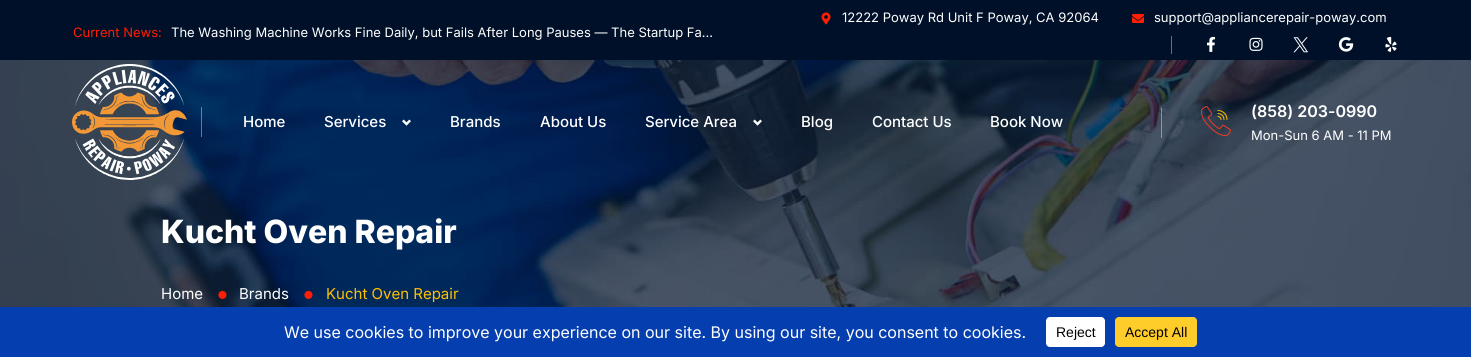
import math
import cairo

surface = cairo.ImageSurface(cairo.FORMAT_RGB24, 1471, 357)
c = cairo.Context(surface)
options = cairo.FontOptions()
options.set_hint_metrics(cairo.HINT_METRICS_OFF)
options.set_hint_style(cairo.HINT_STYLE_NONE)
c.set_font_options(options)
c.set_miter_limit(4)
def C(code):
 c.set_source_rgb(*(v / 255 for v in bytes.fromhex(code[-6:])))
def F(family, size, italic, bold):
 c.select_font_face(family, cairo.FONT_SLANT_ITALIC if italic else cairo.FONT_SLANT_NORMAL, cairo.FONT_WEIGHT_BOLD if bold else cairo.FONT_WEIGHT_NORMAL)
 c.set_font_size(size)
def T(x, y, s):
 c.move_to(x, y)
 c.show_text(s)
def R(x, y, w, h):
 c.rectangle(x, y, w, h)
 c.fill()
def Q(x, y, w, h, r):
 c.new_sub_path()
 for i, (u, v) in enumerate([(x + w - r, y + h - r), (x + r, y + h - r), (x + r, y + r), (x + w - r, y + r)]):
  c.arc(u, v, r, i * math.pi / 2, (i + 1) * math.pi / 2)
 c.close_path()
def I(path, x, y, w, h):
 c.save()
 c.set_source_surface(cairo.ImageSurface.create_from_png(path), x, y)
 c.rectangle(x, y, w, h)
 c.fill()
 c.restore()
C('001029')
c.paint()
I('1.png',821,12,10,13)
F('Inter',13,0,0)
C('ffffff')
T(842,22,'12222 Poway Rd Unit F Poway, CA 92064')
I('2.png',1132,14,12,9)
T(1154,22,'support@appliancerepair-poway.com')
C('66707f')
R(1171,36,1,18)
I('3.png',1207,36,8,16)
I('4.png',1249,37,14,14)
I('5.png',1293,37,16,16)
I('6.png',1338,37,16,15)
I('7.png',1385,36,12,16)
C('ff1e01')
T(73,37,'Current News:')
C('ffffff')
T(171,37,'The Washing Machine Works Fine Daily, but Fails After Long Pauses — The Startup Fa…')
I('12.png',0,60,1471,247)
I('8.png',72,64,115,116)
c.set_source_rgba(1,1,1,0.4)
R(201,107,1,30)
F('Inter Medium',15,0,0)
C('ffffff')
T(243,127,'Home')
T(324,127,'Services')
I('9.png',402,119,9,7)
T(450,127,'Brands')
T(540,127,'About Us')
T(645,127,'Service Area')
I('10.png',753,119,9,7)
T(801,127,'Blog')
T(872,127,'Contact Us')
T(990,127,'Book Now')
c.set_source_rgba(1,1,1,0.4)
R(1161,108,1,30)
I('11.png',1201,106,30,30)
F('Inter SemiBold',16,0,0)
C('ffffff')
T(1251,117,'(858) 203-0990')
F('Inter',13,0,0)
T(1251,140,'Mon-Sun 6 AM - 11 PM')
F('Inter ExtraBold',32,0,0)
T(161,243,'Kucht Oven Repair')
F('Inter',15,0,0)
T(161,299,'Home')
F('DejaVu Sans',8,0,0)
C('ff1e01')
T(218,297,'⬤')
F('Inter',15,0,0)
C('ffffff')
T(239,299,'Brands')
F('DejaVu Sans',8,0,0)
C('ff1e01')
T(304,297,'⬤')
F('Inter',15,0,0)
C('ffc000')
T(326,299,'Kucht Oven Repair')
C('053eaf')
R(0,307,1471,50)
F('Inter',16,0,0)
C('ffffff')
T(284,338,'We use cookies to improve your experience on our site. By using our site, you consent to cookies.')
Q(1046,317,59,30,4)
c.fill()
F('Liberation Sans',14,0,0)
C('000000')
T(1056,337,'Reject')
C('ffcd2a')
Q(1115,317,82,30,4)
c.fill()
C('000000')
T(1125,337,'Accept All')
surface.write_to_png('o.png')
